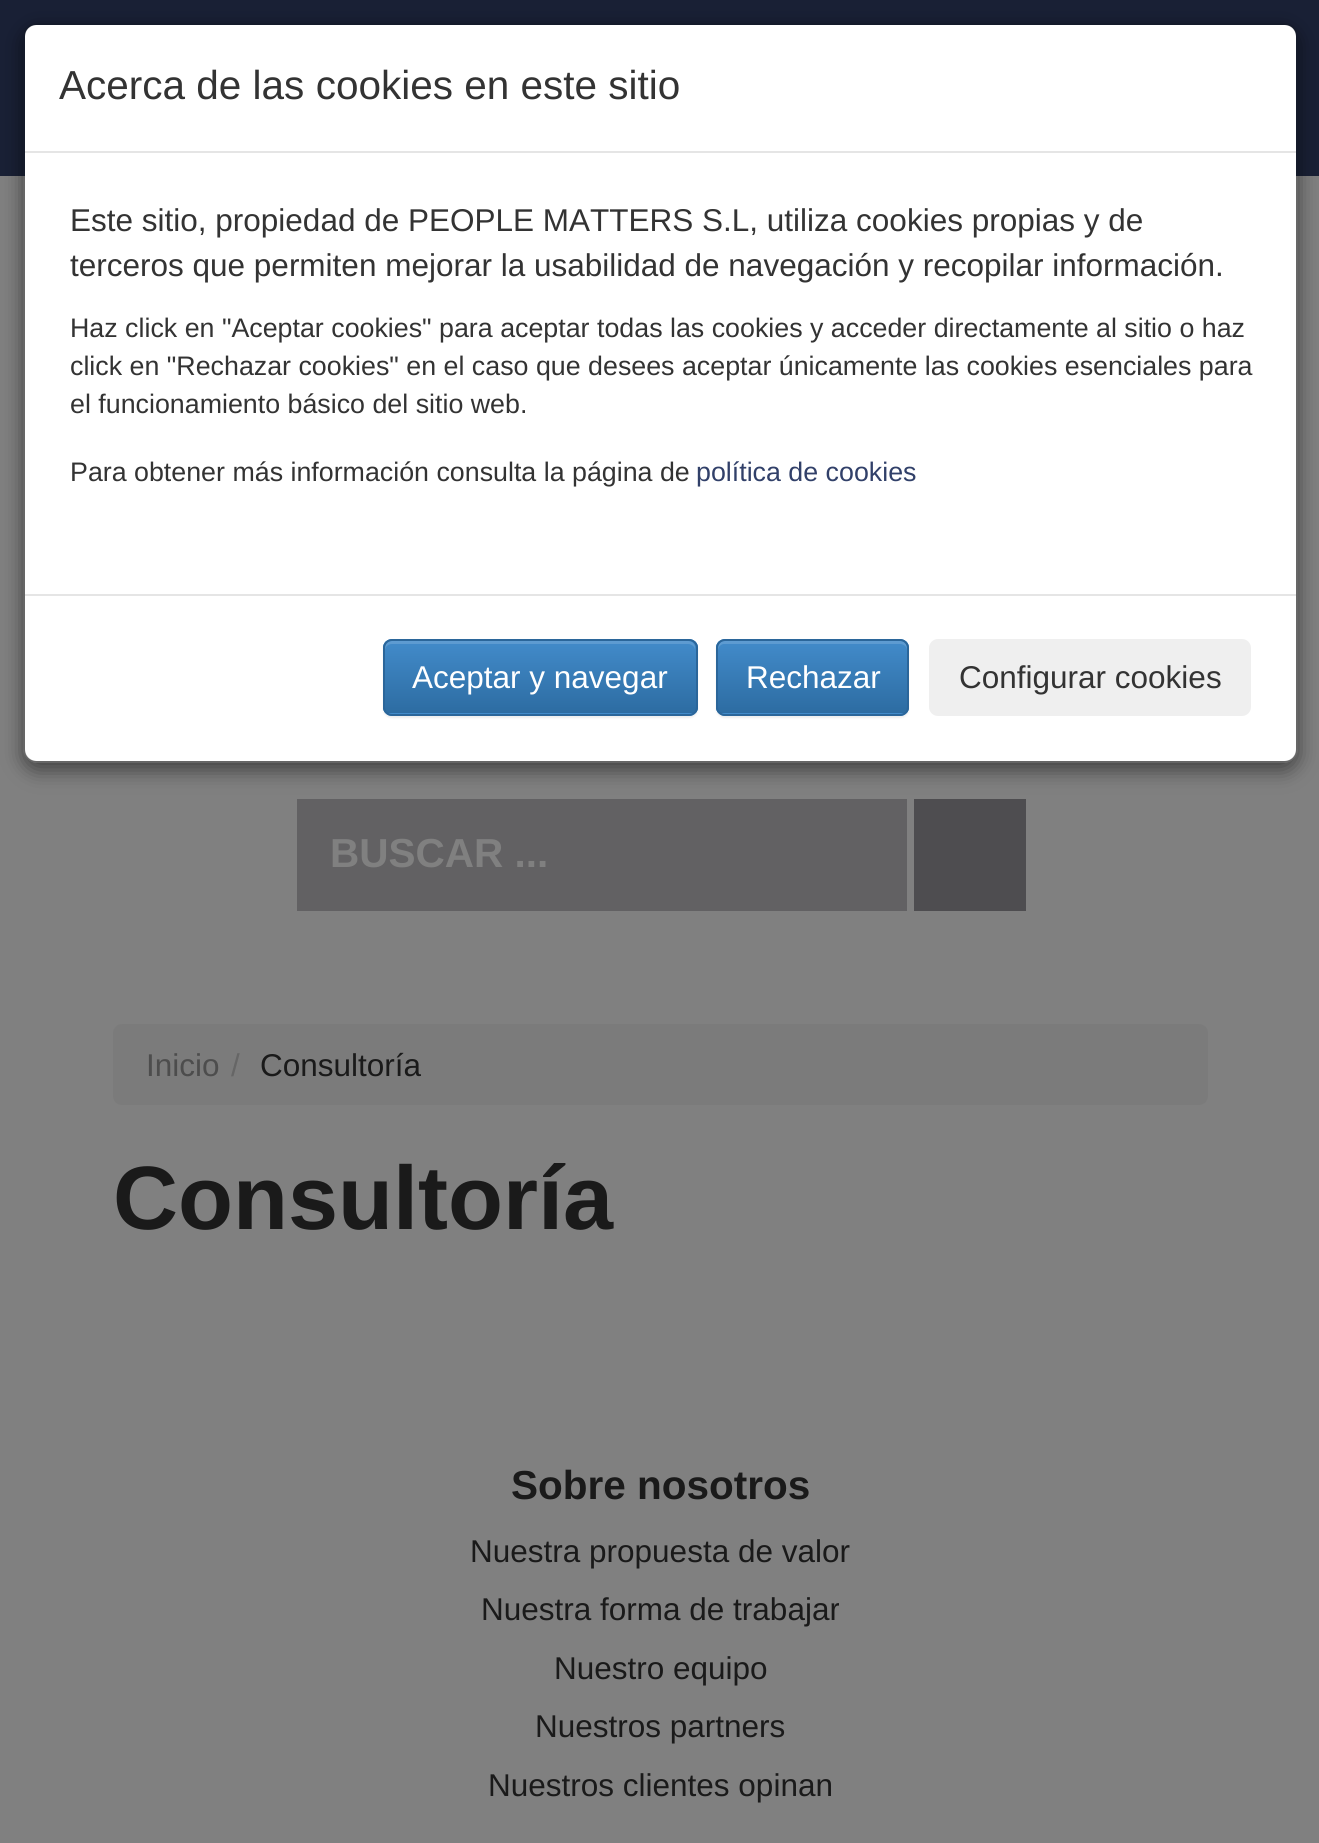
import math
import cairo

surface = cairo.ImageSurface(cairo.FORMAT_RGB24, 1319, 1843)
c = cairo.Context(surface)
options = cairo.FontOptions()
options.set_hint_metrics(cairo.HINT_METRICS_OFF)
options.set_hint_style(cairo.HINT_STYLE_NONE)
c.set_font_options(options)
c.set_miter_limit(4)
def C(code):
 c.set_source_rgb(*(v / 255 for v in bytes.fromhex(code[-6:])))
def F(family, size, italic, bold):
 c.select_font_face(family, cairo.FONT_SLANT_ITALIC if italic else cairo.FONT_SLANT_NORMAL, cairo.FONT_WEIGHT_BOLD if bold else cairo.FONT_WEIGHT_NORMAL)
 c.set_font_size(size)
def T(x, y, s):
 c.move_to(x, y)
 c.show_text(s)
def R(x, y, w, h):
 c.rectangle(x, y, w, h)
 c.fill()
def Q(x, y, w, h, r):
 c.new_sub_path()
 for i, (u, v) in enumerate([(x + w - r, y + h - r), (x + r, y + h - r), (x + r, y + r), (x + w - r, y + r)]):
  c.arc(u, v, r, i * math.pi / 2, (i + 1) * math.pi / 2)
 c.close_path()
def S(x, y, w, h, r, blur, alpha):
 c.push_group_with_content(cairo.CONTENT_ALPHA)
 c.set_operator(cairo.OPERATOR_SOURCE)
 for i in range(15, -16, -2):
  e = blur * i / 6
  if min(w, h) + 2 * e > 0:
   c.set_source_rgba(0, 0, 0, alpha * math.erfc((i - 1) / 8.5) / 2)
   Q(x - e, y - e, w + 2 * e, h + 2 * e, max(0, min(r + e + blur * .6, min(w, h) / 2 + e)))
   c.fill()
 c.mask(c.pop_group())
C('808080')
c.paint()
C('192035')
R(0,0,1319,176)
C('626163')
R(297,799,610,112)
C('4e4d50')
R(914,799,112,112)
c.save()
c.set_fill_rule(cairo.FILL_RULE_EVEN_ODD)
c.new_path()
c.move_to(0,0)
c.line_to(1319,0)
c.line_to(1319,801)
c.line_to(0,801)
c.close_path()
c.move_to(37,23)
c.line_to(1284,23)
c.curve_to(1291.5,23,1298,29.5,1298,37)
c.line_to(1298,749)
c.curve_to(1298,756.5,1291.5,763,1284,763)
c.line_to(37,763)
c.curve_to(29.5,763,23,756.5,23,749)
c.line_to(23,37)
c.curve_to(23,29.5,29.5,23,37,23)
c.close_path()
c.clip()
C('000000')
S(23,29,1275,741,14,10,.5)
c.restore()
C('ffffff')
Q(25,25,1271,736,11)
c.fill()
Q(24,24,1273,738,13)
c.set_source_rgba(0,0,0,0.2)
c.stroke()
C('e5e5e5')
R(25,151,1271,2)
F('Liberation Sans',40.5,0,0)
C('333333')
T(59,99,'Acerca de las cookies en este sitio')
F('Liberation Sans',31.5,0,0)
T(70,231,'Este sitio, propiedad de PEOPLE MATTERS S.L, utiliza cookies propias y de')
T(70,276,'terceros que permiten mejorar la usabilidad de navegación y recopilar información.')
F('Liberation Sans',26.8,0,0)
T(70,337,'Haz click en "Aceptar cookies" para aceptar todas las cookies y acceder directamente al sitio o haz')
T(70,375,'click en "Rechazar cookies" en el caso que desees aceptar únicamente las cookies esenciales para')
T(70,413,'el funcionamiento básico del sitio web.')
T(70,481,'Para obtener más información consulta la página de')
C('314069')
T(696,481,'política de cookies')
C('e5e5e5')
R(25,594,1271,2)
C('000000')
S(383,641,315,77,9,1,.07)
C('428bca')
Q(383,639,315,77,9)
c.fill()
c.save()
Q(383,639,315,77,9)
c.clip()
gradient = cairo.LinearGradient(540,641,540,713)
gradient.add_color_stop_rgba(0,0.259,0.545,0.792,1)
gradient.add_color_stop_rgba(1,0.176,0.424,0.635,1)
c.set_source(gradient)
R(383,641,315,72)
c.restore()
c.set_source_rgba(1,1,1,0.15)
c.new_path()
c.move_to(392,644)
c.line_to(688,644)
c.curve_to(692,644,695,647,695,650)
c.line_to(695,648)
c.curve_to(695,644,692,641,688,641)
c.line_to(392,641)
c.curve_to(388,641,385,644,385,648)
c.line_to(385,650)
c.curve_to(385,647,388,644,392,644)
c.close_path()
c.fill()
Q(384,640,313,75,8)
C('2b669a')
c.stroke()
F('Liberation Sans',31.5,0,0)
C('ffffff')
T(412,688,'Aceptar y navegar')
C('000000')
S(716,641,193,77,9,1,.07)
C('428bca')
Q(716,639,193,77,9)
c.fill()
c.save()
Q(716,639,193,77,9)
c.clip()
gradient = cairo.LinearGradient(812,641,812,713)
gradient.add_color_stop_rgba(0,0.259,0.545,0.792,1)
gradient.add_color_stop_rgba(1,0.176,0.424,0.635,1)
c.set_source(gradient)
R(716,641,193,72)
c.restore()
c.set_source_rgba(1,1,1,0.15)
c.new_path()
c.move_to(724,644)
c.line_to(900,644)
c.curve_to(904,644,907,647,907,650)
c.line_to(907,648)
c.curve_to(907,644,904,641,900,641)
c.line_to(725,641)
c.curve_to(721,641,718,644,718,648)
c.line_to(718,650)
c.curve_to(718,647,721,644,724,644)
c.close_path()
c.fill()
Q(717,640,191,75,8)
C('2b669a')
c.stroke()
C('ffffff')
T(746,688,'Rechazar')
C('efefef')
Q(929,639,322,77,9)
c.fill()
C('333333')
T(959,688,'Configurar cookies')
F('Liberation Sans',40.5,0,1)
C('808080')
T(330,867,'BUSCAR ...')
C('7b7b7b')
Q(113,1024,1095,81,9)
c.fill()
F('Liberation Sans',31.5,0,0)
C('4d4d4d')
T(146,1076,'Inicio')
C('666666')
T(231,1076,'/')
C('1a1a1a')
T(260,1076,'Consultoría')
F('Liberation Sans',90,0,1)
T(113,1229,'Consultoría')
F('Liberation Sans',40.5,0,1)
T(511,1499,'Sobre nosotros')
F('Liberation Sans',31.5,0,0)
T(470,1562,'Nuestra propuesta de valor')
T(481,1620,'Nuestra forma de trabajar')
T(554,1679,'Nuestro equipo')
T(535,1737,'Nuestros partners')
T(488,1796,'Nuestros clientes opinan')
surface.write_to_png('o.png')
